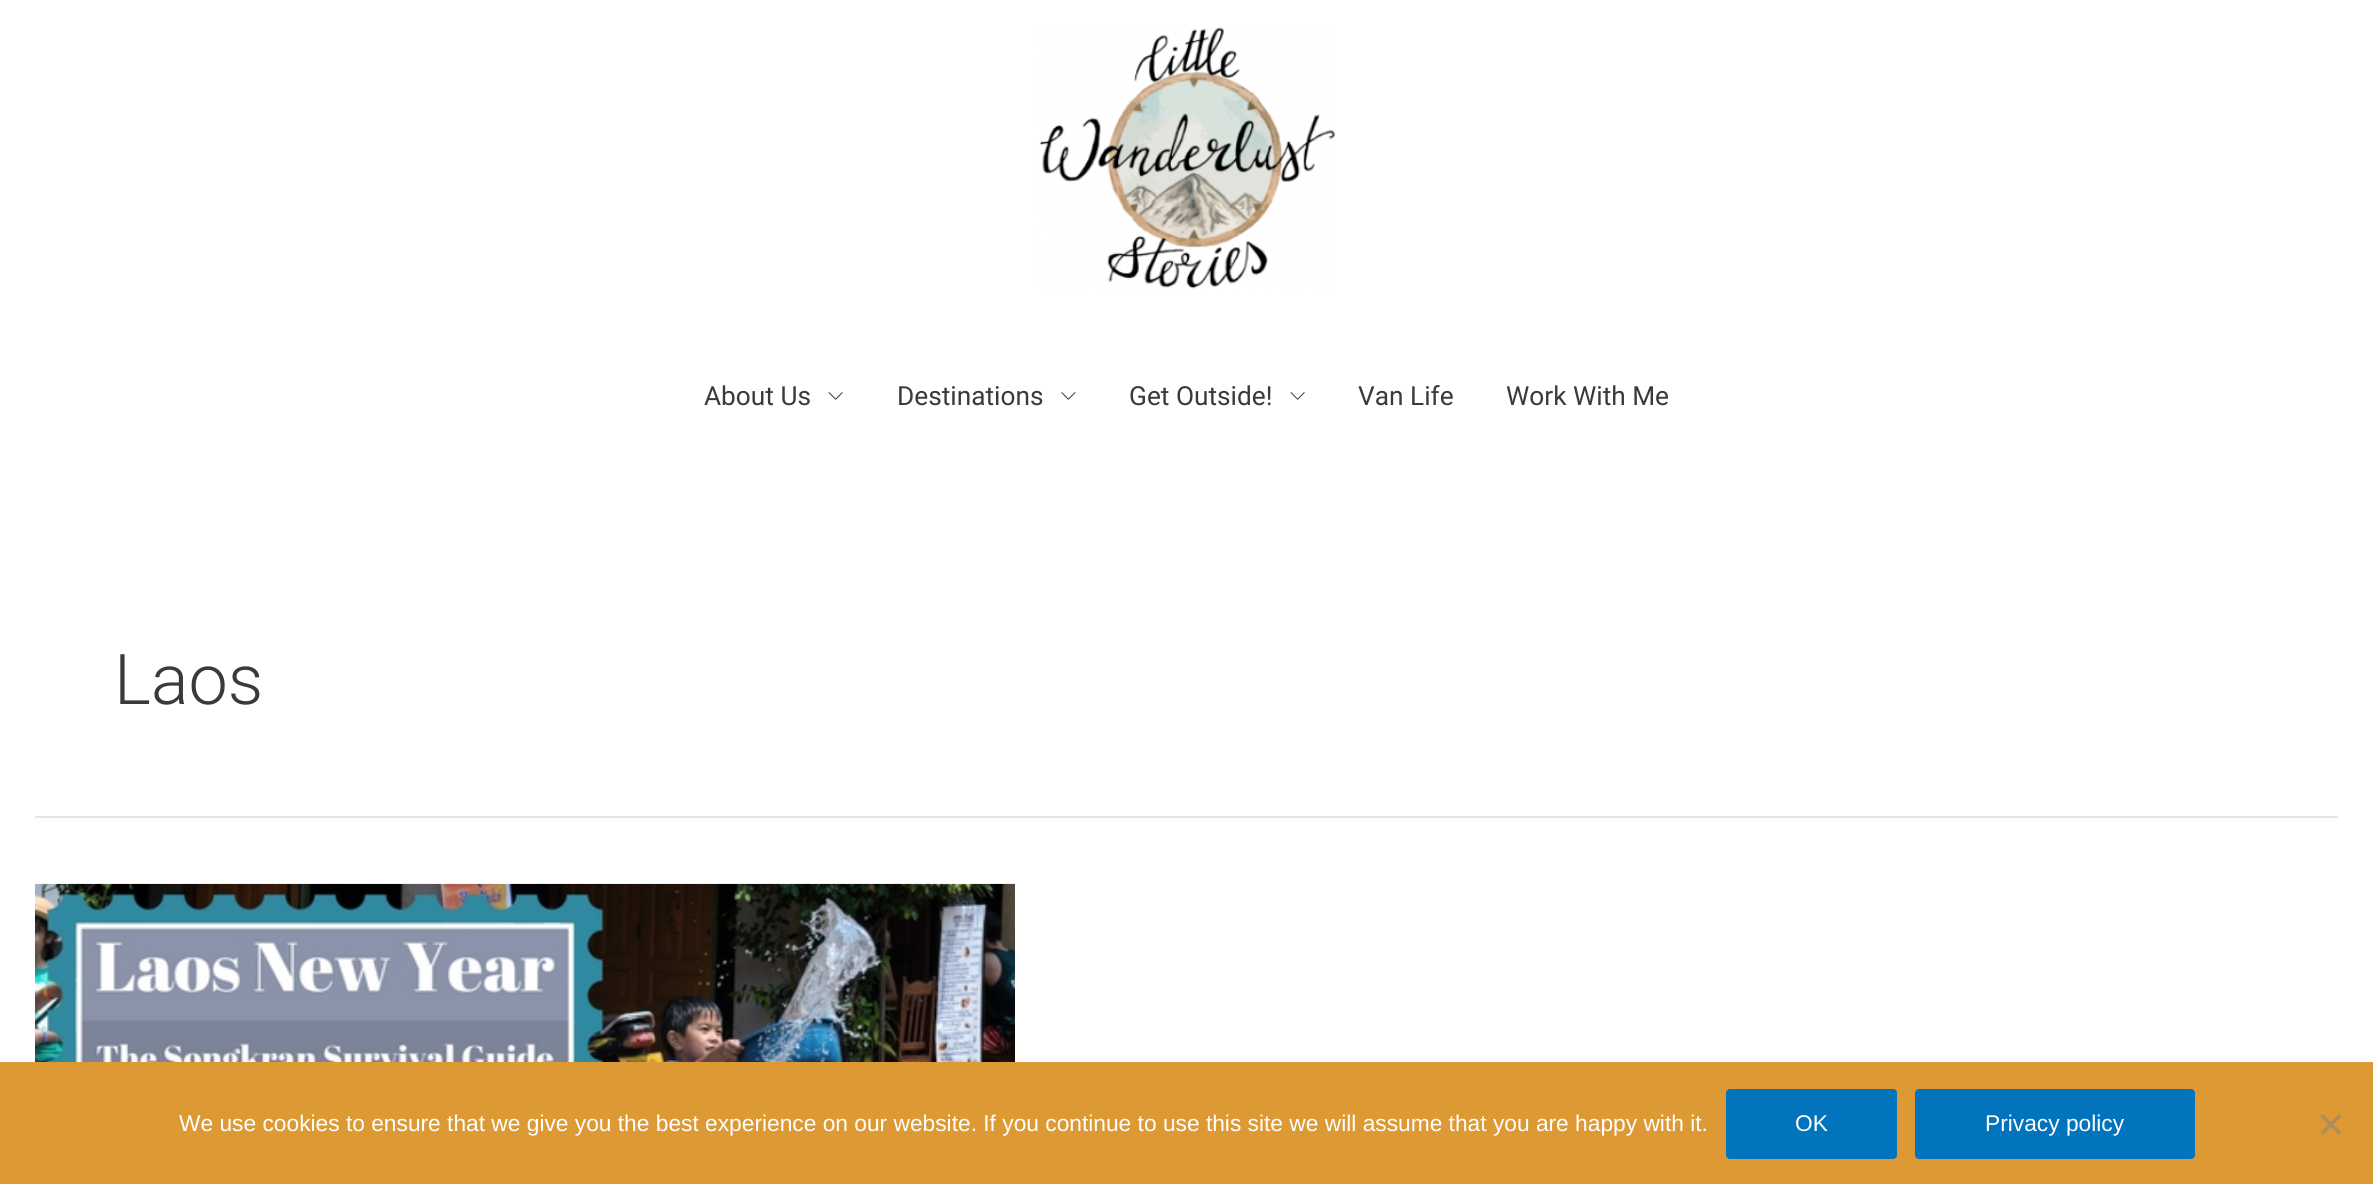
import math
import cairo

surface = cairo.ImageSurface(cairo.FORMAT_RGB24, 2373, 1184)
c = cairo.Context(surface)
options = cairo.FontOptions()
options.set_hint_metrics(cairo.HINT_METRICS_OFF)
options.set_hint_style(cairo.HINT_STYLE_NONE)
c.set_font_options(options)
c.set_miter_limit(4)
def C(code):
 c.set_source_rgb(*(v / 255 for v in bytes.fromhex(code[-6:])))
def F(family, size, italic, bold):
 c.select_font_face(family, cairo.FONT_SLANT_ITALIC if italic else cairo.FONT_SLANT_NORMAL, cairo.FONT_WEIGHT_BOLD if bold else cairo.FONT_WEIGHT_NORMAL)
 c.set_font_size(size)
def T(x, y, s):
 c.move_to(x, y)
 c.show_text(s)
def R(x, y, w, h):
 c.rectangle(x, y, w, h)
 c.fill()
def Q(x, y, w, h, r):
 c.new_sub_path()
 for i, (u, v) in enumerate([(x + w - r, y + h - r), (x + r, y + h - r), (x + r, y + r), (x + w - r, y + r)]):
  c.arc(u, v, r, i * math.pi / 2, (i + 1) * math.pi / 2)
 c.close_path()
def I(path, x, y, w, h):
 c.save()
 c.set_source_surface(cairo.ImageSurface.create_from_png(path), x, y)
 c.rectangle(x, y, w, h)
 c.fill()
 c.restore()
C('ffffff')
c.paint()
I('1.png',1039,27,297,262)
F('Roboto',26.25,0,0)
C('3a3a3a')
T(704,405,'About Us')
I('2.png',828,392,15,8)
T(897,405,'Destinations')
I('3.png',1061,392,15,8)
T(1129,405,'Get Outside!')
I('2.png',1290,392,15,8)
T(1358,405,'Van Life')
T(1506,405,'Work With Me')
C('e5e5e5')
R(35,816,2303,2)
F('Roboto Light',70,0,0)
C('3a3a3a')
T(114,704,'Laos')
I('4.png',35,883,980,179)
C('dd9933')
R(0,1062,2373,122)
F('Liberation Sans',22.75,0,0)
C('ffffff')
T(179,1131,'We use cookies to ensure that we give you the best experience on our website. If you continue to use this site we will assume that you are happy with it.')
C('0274be')
Q(1726,1089,171,70,4)
c.fill()
C('ffffff')
T(1795,1131,'OK')
C('0274be')
Q(1915,1089,280,70,4)
c.fill()
C('ffffff')
T(1985,1131,'Privacy policy')
C('af8d5a')
c.new_path()
c.move_to(2339,1114)
c.line_to(2341.5,1116.5)
c.line_to(2323,1135)
c.line_to(2320.5,1132.5)
c.close_path()
c.fill()
c.new_path()
c.move_to(2320.5,1116.5)
c.line_to(2323,1114)
c.line_to(2341.5,1132.5)
c.line_to(2339,1135)
c.close_path()
c.fill()
surface.write_to_png('o.png')
